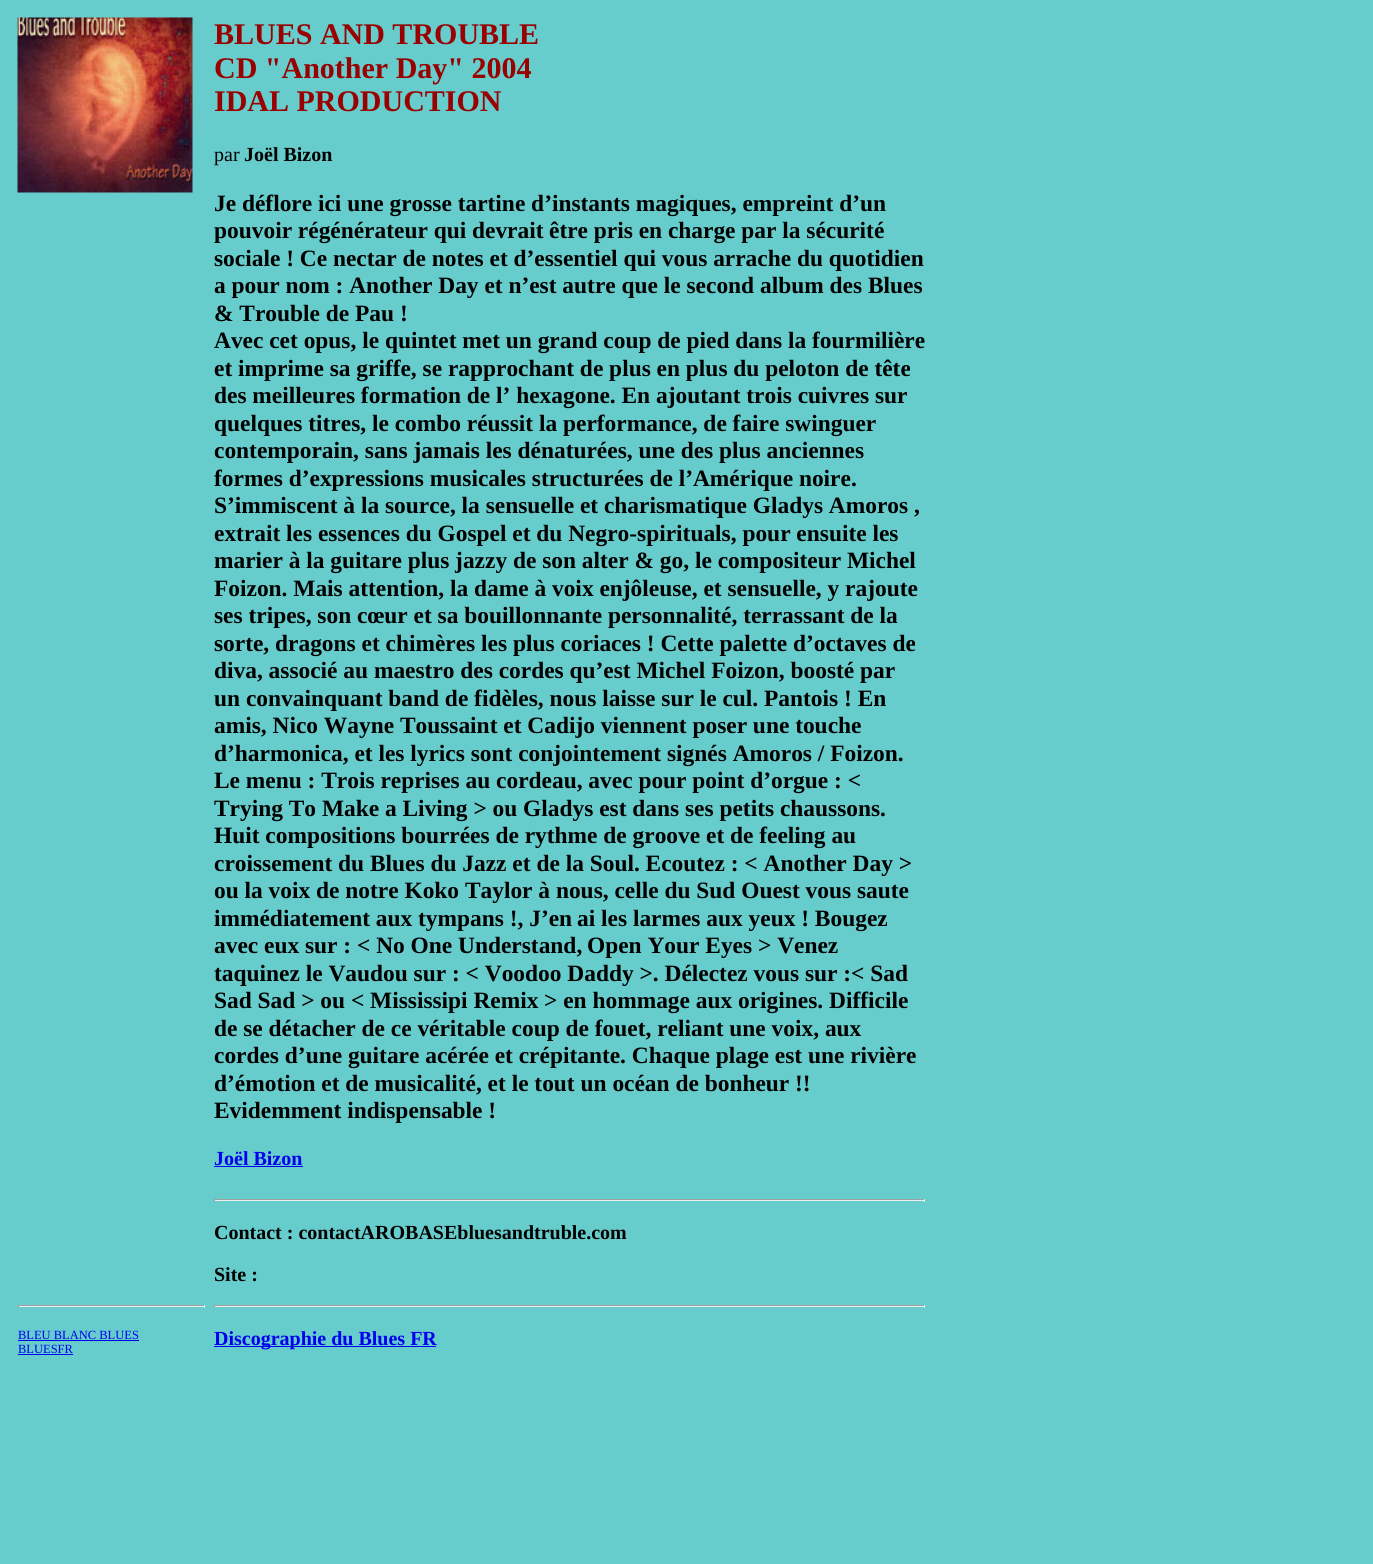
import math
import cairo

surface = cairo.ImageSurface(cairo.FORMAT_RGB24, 1373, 1564)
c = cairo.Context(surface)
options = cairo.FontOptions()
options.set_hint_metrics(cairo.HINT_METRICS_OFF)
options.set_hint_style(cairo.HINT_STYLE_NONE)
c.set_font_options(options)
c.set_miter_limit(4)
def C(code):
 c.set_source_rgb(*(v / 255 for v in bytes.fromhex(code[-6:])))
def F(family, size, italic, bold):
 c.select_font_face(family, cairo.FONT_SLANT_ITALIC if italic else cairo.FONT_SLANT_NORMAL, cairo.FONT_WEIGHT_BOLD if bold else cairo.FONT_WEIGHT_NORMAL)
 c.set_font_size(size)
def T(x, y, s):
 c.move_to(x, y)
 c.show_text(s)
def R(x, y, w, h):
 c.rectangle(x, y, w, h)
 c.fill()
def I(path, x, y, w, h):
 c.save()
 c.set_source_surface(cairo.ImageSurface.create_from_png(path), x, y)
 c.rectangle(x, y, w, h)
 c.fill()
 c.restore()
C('66cccc')
c.paint()
I('1.png',17,17,176,176)
F('Liberation Serif',30,0,1)
C('990000')
T(214,44,'BLUES AND TROUBLE')
T(214,78,'CD "Another Day" 2004')
T(214,111,'IDAL PRODUCTION')
F('Liberation Serif',20,0,0)
C('000000')
T(214,161,'par')
F('Liberation Serif',20,0,1)
T(244,161,'Joël Bizon')
F('Liberation Serif',23.4,0,1)
T(214,211,'Je déflore ici une grosse tartine d’instants magiques, empreint d’un')
T(214,238,'pouvoir régénérateur qui devrait')
T(549,238,'être pris en charge par la sécurité')
T(214,266,'sociale ! Ce nectar de notes et d’essentiel qui vous arrache du quotidien')
T(214,293,'a pour nom : Another Day et n’est autre que le second album des Blues')
T(214,321,'& Trouble de Pau !')
T(214,348,'Avec cet opus, le quintet met un grand coup de pied dans la fourmilière')
T(214,376,'et imprime sa griffe, se rapprochant de plus en plus du peloton de tête')
T(214,403,'des meilleures formation de l’ hexagone. En ajoutant trois cuivres sur')
T(214,431,'quelques titres, le combo réussit la performance, de faire swinguer')
T(214,458,'contemporain, sans jamais les dénaturées, une des plus anciennes')
T(214,486,'formes d’expressions musicales structurées de l’Amérique noire.')
T(214,513,'S’immiscent à la source, la sensuelle et charismatique Gladys Amoros ,')
T(214,541,'extrait les essences du Gospel et du Negro-spirituals, pour ensuite les')
T(214,568,'marier à la guitare plus jazzy de son alter & go, le compositeur Michel')
T(214,596,'Foizon. Mais attention, la dame à voix enjôleuse, et sensuelle, y rajoute')
T(214,623,'ses tripes, son cœur et sa bouillonnante personnalité, terrassant de la')
T(214,651,'sorte, dragons et chimères les plus coriaces ! Cette palette d’octaves de')
T(214,678,'diva, associé au maestro des cordes qu’est Michel Foizon, boosté par')
T(214,706,'un convainquant band de fidèles, nous laisse sur le cul. Pantois ! En')
T(214,733,'amis, Nico Wayne Toussaint et Cadijo viennent poser une touche')
T(214,761,'d’harmonica, et les lyrics sont conjointement signés Amoros / Foizon.')
T(214,788,'Le menu : Trois reprises au cordeau, avec pour point d’orgue : <')
T(214,816,'Trying To Make a Living > ou Gladys est dans ses petits chaussons.')
T(214,843,'Huit compositions bourrées de rythme de groove et de feeling au')
T(214,871,'croissement du Blues du Jazz et de la Soul. Ecoutez : < Another Day >')
T(214,898,'ou la voix de notre Koko Taylor à nous, celle du Sud Ouest vous saute')
T(214,926,'immédiatement aux tympans !, J’en')
T(577,926,'ai les larmes aux yeux ! Bougez')
T(214,953,'avec eux sur : < No One Understand,')
T(587,953,'Open Your Eyes > Venez')
T(214,981,'taquinez le Vaudou sur : < Voodoo Daddy >. Délectez vous sur :< Sad')
T(214,1008,'Sad Sad > ou < Mississipi Remix')
T(544,1008,'> en hommage aux origines. Difficile')
T(214,1036,'de se détacher de ce véritable coup de fouet, reliant une voix, aux')
T(214,1063,'cordes d’une guitare acérée et crépitante. Chaque plage est une rivière')
T(214,1091,'d’émotion et de musicalité, et le tout un océan de bonheur !!')
T(214,1118,'Evidemment indispensable !')
F('Liberation Serif',20,0,1)
C('0000ee')
T(214,1165,'Joël Bizon')
R(214,1166,89,1)
C('9f9f9f')
R(214,1199,711,1)
C('eeeeee')
R(924,1199,1,3)
R(214,1200,711,1)
C('9f9f9f')
R(214,1199,1,3)
C('000000')
T(214,1239,'Contact : contactAROBASEbluesandtruble.com')
T(214,1281,'Site :')
C('9f9f9f')
R(18,1305,187,1)
C('eeeeee')
R(204,1305,1,3)
R(18,1306,187,1)
C('9f9f9f')
R(18,1305,1,3)
F('Liberation Serif',12.5,0,0)
C('0000ee')
T(18,1339,'BLEU BLANC BLUES')
R(18,1340,121,1)
T(18,1353,'BLUESFR')
R(18,1354,55,1)
C('9f9f9f')
R(214,1305,711,1)
C('eeeeee')
R(924,1305,1,3)
R(214,1306,711,1)
C('9f9f9f')
R(214,1305,1,3)
C('0000ee')
R(214,1346,222,1)
F('Liberation Serif',20,0,1)
T(214,1345,'Discographie du Blues FR')
surface.write_to_png('o.png')
